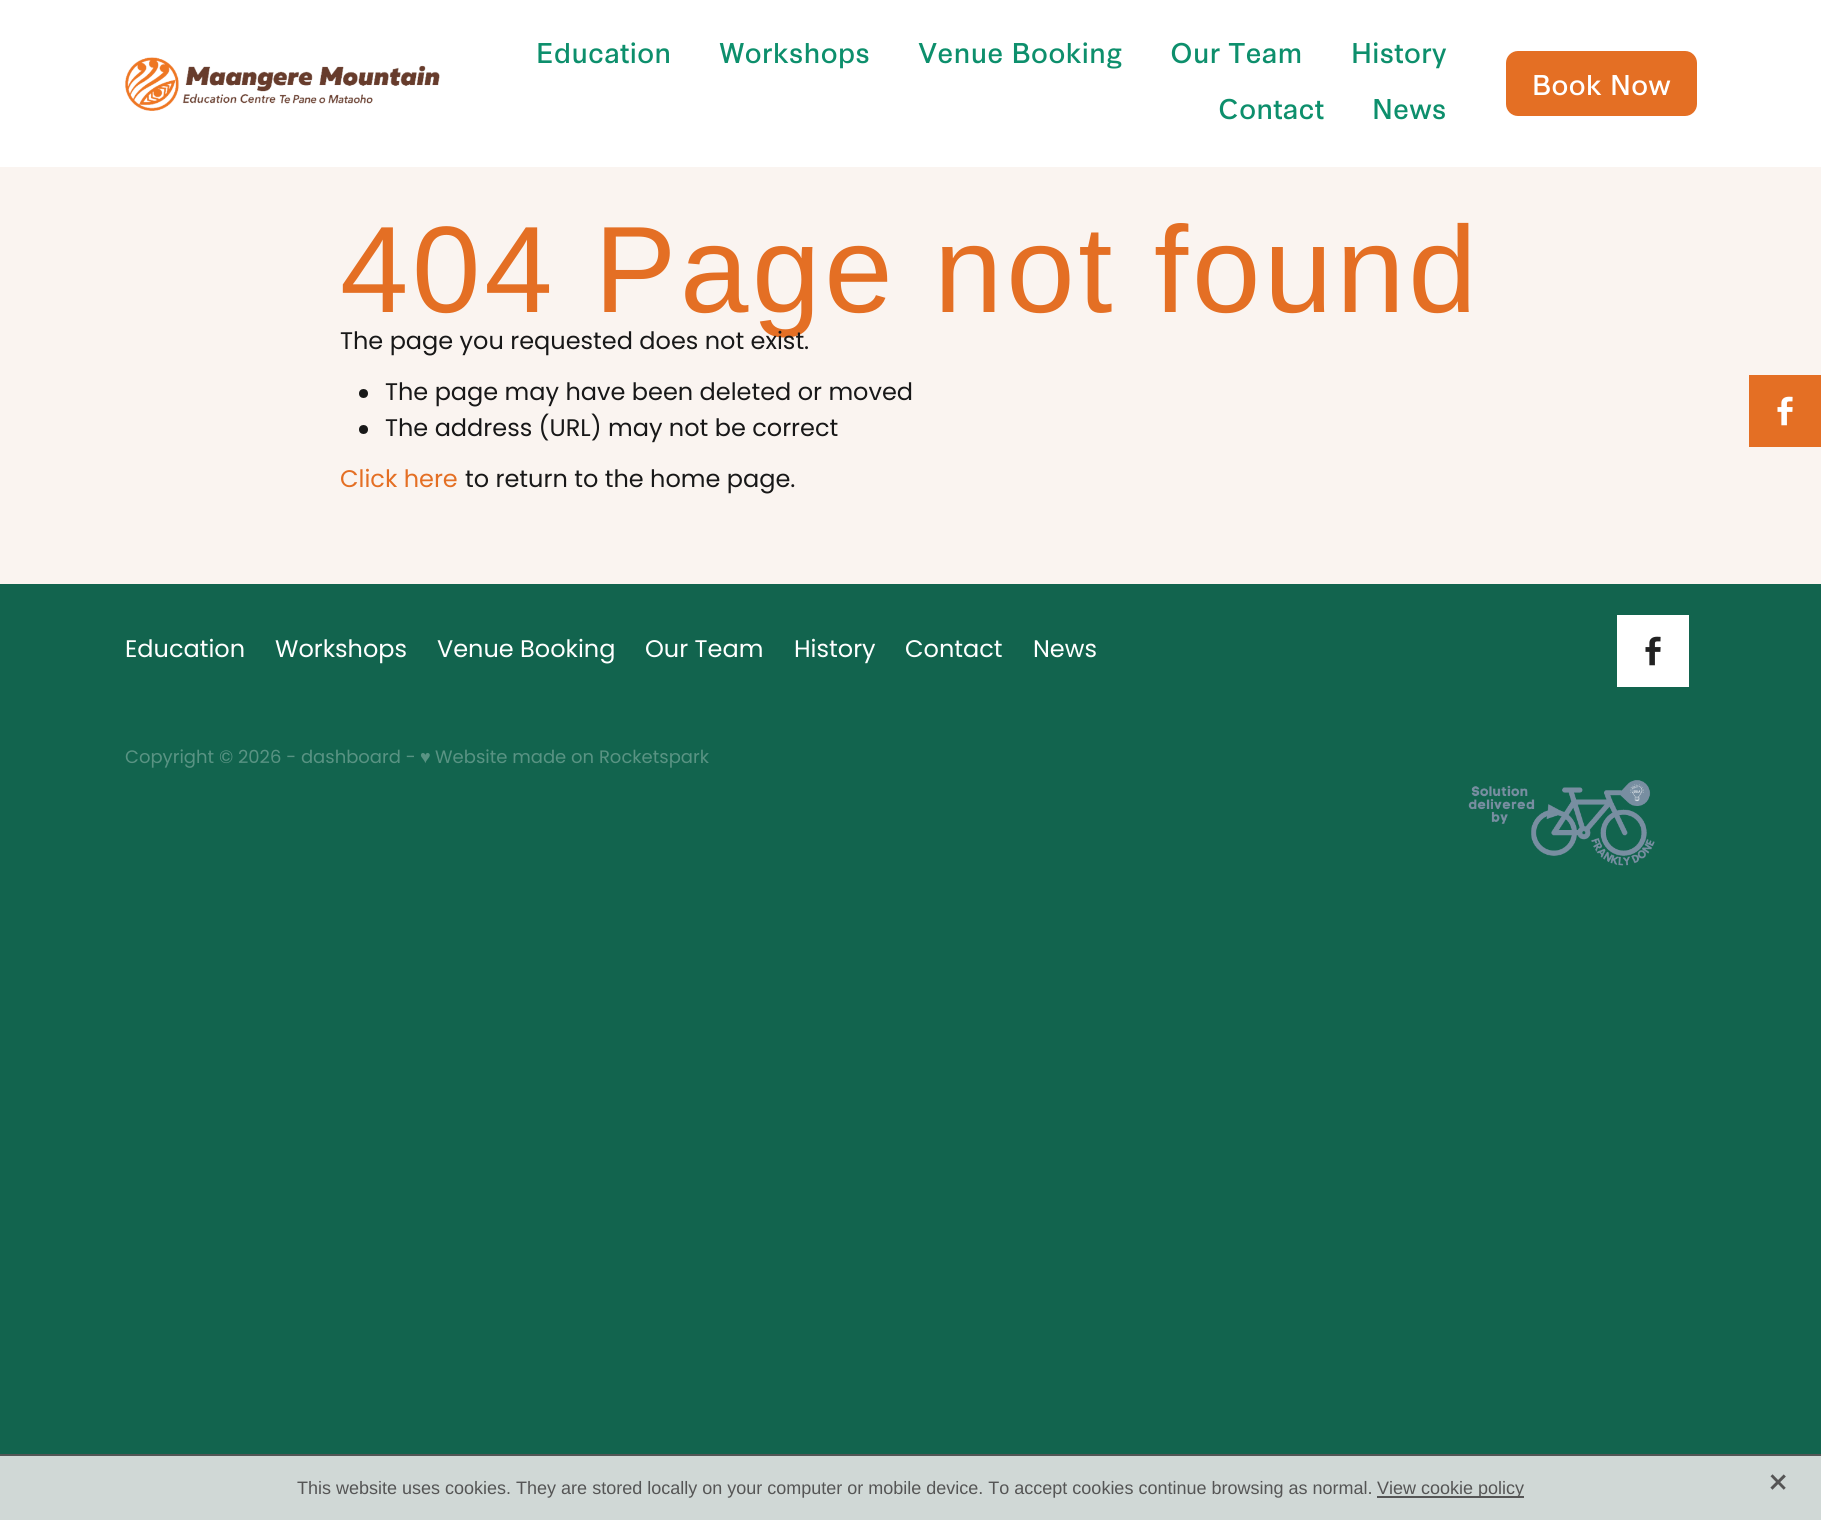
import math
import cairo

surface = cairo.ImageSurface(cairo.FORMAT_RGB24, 1821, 1520)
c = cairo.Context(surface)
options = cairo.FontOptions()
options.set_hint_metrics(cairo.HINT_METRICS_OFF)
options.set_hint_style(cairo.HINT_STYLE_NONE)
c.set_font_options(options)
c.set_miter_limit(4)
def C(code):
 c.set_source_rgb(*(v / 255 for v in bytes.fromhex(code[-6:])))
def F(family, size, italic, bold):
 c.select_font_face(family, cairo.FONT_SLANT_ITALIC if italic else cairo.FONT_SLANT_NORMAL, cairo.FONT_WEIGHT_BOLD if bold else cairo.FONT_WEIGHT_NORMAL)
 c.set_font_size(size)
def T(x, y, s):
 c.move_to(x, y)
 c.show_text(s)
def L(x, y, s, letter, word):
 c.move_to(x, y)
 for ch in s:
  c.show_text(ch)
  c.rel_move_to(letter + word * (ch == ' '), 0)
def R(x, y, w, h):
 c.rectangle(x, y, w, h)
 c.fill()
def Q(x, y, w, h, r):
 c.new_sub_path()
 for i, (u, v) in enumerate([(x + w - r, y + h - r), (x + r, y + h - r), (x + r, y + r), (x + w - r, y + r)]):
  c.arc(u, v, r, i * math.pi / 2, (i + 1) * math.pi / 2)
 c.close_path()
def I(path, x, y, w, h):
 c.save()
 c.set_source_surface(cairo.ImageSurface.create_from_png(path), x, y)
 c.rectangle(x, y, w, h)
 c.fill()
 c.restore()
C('faf4f0')
c.paint()
C('ffffff')
R(0,0,1821,167)
I('1.png',125,57,315,54)
F('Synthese',27,0,0)
C('0d8f6c')
T(536,63,'Education')
T(719,63,'Workshops')
T(918,63,'Venue Booking')
T(1170,63,'Our Team')
T(1351,63,'History')
T(1218,119,'Contact')
T(1372,119,'News')
C('e46f24')
Q(1506,51,191,65,12)
c.fill()
C('ffffff')
T(1532,95,'Book Now')
F('Liberation Sans',123,0,0)
C('e46f24')
L(340,312,'404 Page not found',3.7,0)
F('Poppins',24,0,0)
C('181818')
T(340,349,'The page you requested does not exist.')
c.new_path()
c.arc(363.5,393.5,4.5,0,2 * math.pi)
c.fill()
T(385,400,'The page may have been deleted or moved')
c.new_path()
c.arc(363.5,429.5,4.5,0,2 * math.pi)
c.fill()
T(385,436,'The address (URL) may not be correct')
C('e46f24')
T(340,487,'Click here')
C('181818')
T(465,487,'to return to the home page.')
C('12644e')
R(0,584,1821,350)
C('ffffff')
T(125,657,'Education')
T(275,657,'Workshops')
T(437,657,'Venue Booking')
T(645,657,'Our Team')
T(794,657,'History')
T(905,657,'Contact')
T(1033,657,'News')
R(1617,615,72,72)
I('2.png',1645,636,16,30)
C('12644e')
c.new_path()
c.move_to(-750,719)
c.line_to(-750,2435)
c.line_to(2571,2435)
c.line_to(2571,719)
c.line_to(1821,719)
c.line_to(1821,934)
c.line_to(0,934)
c.line_to(0,719)
c.close_path()
c.fill()
F('Poppins',18,0,0)
C('599383')
T(125,763,'Copyright © 2026 - dashboard -')
F('Liberation Sans',18,0,0)
T(420,763,'♥')
F('Poppins',18,0,0)
T(435,763,'Website made on Rocketspark')
I('3.png',1468,780,187,86)
C('e46f24')
R(1749,375,72,72)
I('4.png',1777,396,16,30)
C('d0d8d6')
R(0,1456,1821,64)
C('535656')
R(0,1454,1821,2)
F('Liberation Sans',18,0,0)
C('555555')
T(297,1494,'This website uses cookies. They are stored locally on your computer or mobile device. To accept cookies continue browsing as normal.')
R(1377,1496,147,2)
T(1377,1494,'View cookie policy')
I('5.png',1770,1474,16,16)
surface.write_to_png('o.png')
